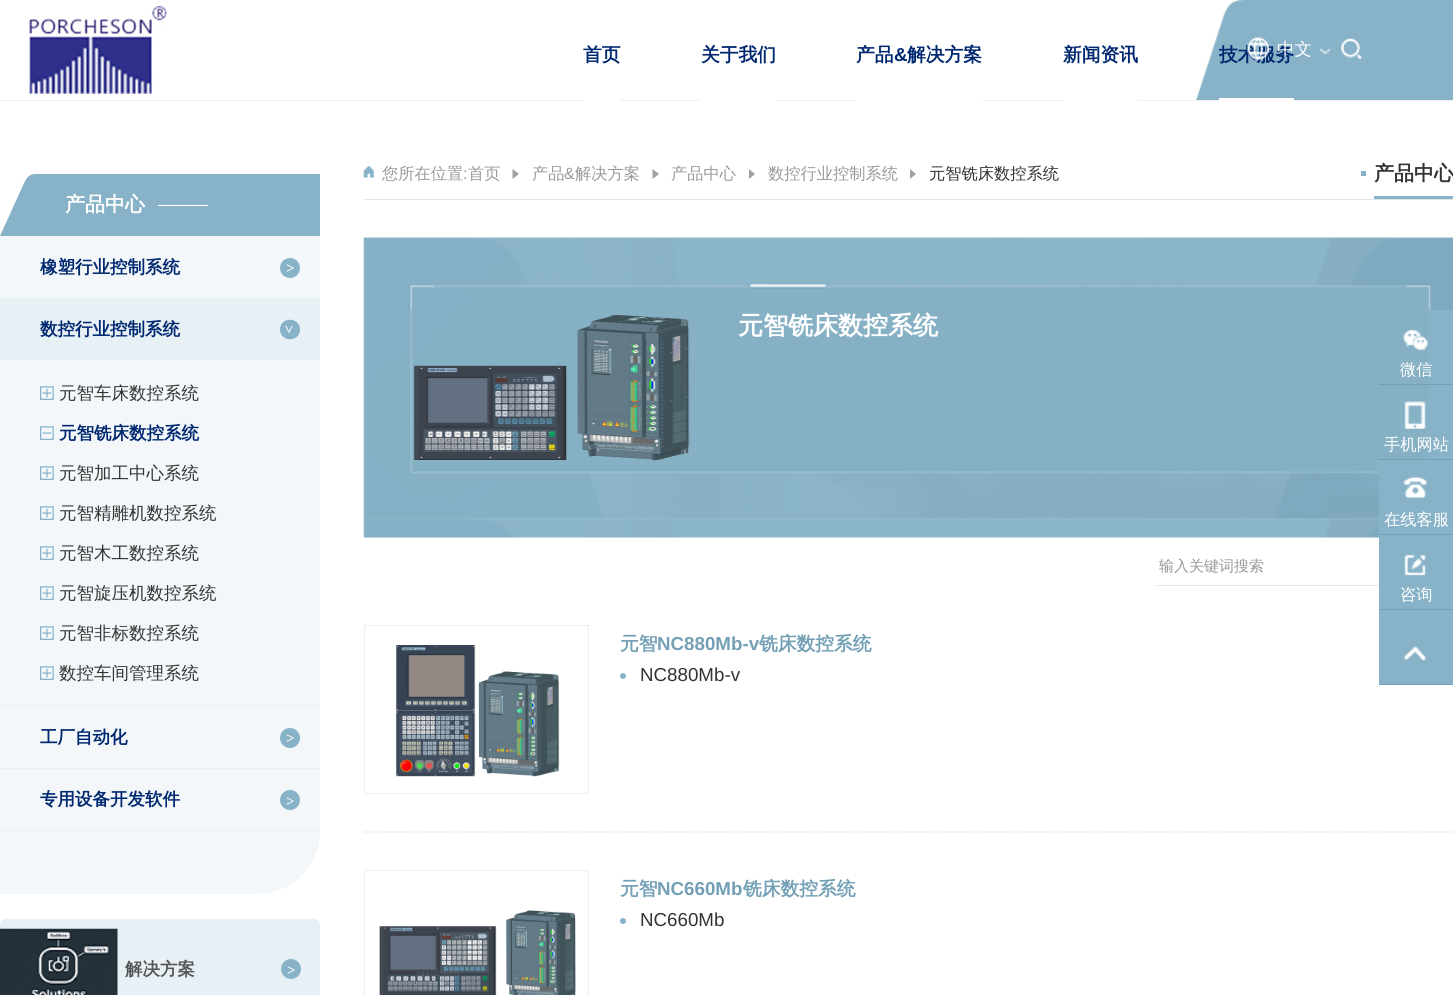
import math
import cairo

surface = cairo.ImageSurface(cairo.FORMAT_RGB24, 1453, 995)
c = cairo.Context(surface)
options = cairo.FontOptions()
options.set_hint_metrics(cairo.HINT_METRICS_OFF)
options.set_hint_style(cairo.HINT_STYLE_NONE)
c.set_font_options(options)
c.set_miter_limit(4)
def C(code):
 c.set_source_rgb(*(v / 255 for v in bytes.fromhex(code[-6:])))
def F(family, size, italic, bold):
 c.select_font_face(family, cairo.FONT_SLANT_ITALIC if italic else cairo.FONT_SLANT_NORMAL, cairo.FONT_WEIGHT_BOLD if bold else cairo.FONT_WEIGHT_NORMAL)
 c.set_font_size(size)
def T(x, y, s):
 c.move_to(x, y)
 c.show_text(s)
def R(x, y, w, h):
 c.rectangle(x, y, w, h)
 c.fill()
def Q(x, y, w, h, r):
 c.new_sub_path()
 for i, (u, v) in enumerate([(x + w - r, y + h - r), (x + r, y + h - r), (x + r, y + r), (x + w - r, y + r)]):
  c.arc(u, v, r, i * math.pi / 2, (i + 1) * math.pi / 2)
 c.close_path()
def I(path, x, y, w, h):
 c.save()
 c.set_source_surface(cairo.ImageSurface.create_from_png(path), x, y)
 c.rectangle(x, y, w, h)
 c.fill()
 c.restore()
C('ffffff')
c.paint()
C('f1f1f1')
R(0,100,1453,1)
I('1.png',28,6,139,88)
C('ffffff')
R(583,100,37,1)
F('WenQuanYi Zen Hei',18.75,0,1)
C('002870')
T(583,61,'首页')
C('ffffff')
R(701,100,75,1)
C('002870')
T(701,61,'关于我们')
C('ffffff')
R(856,100,127,1)
C('002870')
T(856,61,'产品')
F('Liberation Sans',18.75,0,1)
T(894,61,'&')
F('WenQuanYi Zen Hei',18.75,0,1)
T(907,61,'解决方案')
C('ffffff')
R(1063,100,75,1)
C('002870')
T(1063,61,'新闻资讯')
I('2.png',1196,0,50,100)
C('87b2c7')
R(1246,0,207,100)
C('ffffff')
R(1219,98,75,3)
C('002870')
T(1219,61,'技术服务')
I('3.png',1247,37,22,23)
F('WenQuanYi Zen Hei Medium',17.5,0,0)
C('ffffff')
T(1277,55,'中文')
I('4.png',1319,48,12,6)
I('5.png',1341,38,21,21)
C('87b2c7')
c.new_path()
c.move_to(35,174)
c.line_to(320,174)
c.line_to(320,236)
c.line_to(25,236)
c.line_to(25,184)
c.curve_to(25,178.5,29.5,174,35,174)
c.close_path()
c.fill()
c.new_path()
c.move_to(44,236)
c.line_to(0,236)
c.line_to(25,181)
c.close_path()
c.fill()
F('WenQuanYi Zen Hei',20,0,1)
C('ffffff')
T(65,211,'产品中心')
R(158,205,50,1)
C('f3f7f9')
c.new_path()
c.move_to(0,236)
c.line_to(320,236)
c.line_to(320,831)
c.curve_to(320,866,292,894,257,894)
c.line_to(0,894)
c.close_path()
c.fill()
C('e7f0f4')
R(0,298,320,62)
F('WenQuanYi Zen Hei',17.5,0,1)
C('002870')
T(40,273,'橡塑行业控制系统')
C('87b2c7')
c.new_path()
c.arc(290,268,10,0,2 * math.pi)
c.fill()
F('Liberation Serif',15,0,1)
C('ffffff')
T(286,273,'>')
C('e7f0f4')
R(0,705,320,1)
F('WenQuanYi Zen Hei',17.5,0,1)
C('002870')
T(40,335,'数控行业控制系统')
C('87b2c7')
c.new_path()
c.move_to(300,329.5)
c.curve_to(300,342.5,280,342.5,280,329.5)
c.curve_to(280,316.5,300,316.5,300,329.5)
c.close_path()
c.fill()
F('Liberation Serif',15,0,1)
C('ffffff')
c.save()
c.translate(284,325)
c.rotate(90 * math.pi / 180)
T(0,0,'>')
c.restore()
I('6.png',40,386,14,14)
F('WenQuanYi Zen Hei Medium',17.5,0,0)
C('333333')
T(59,399,'元智车床数控系统')
I('7.png',40,426,14,14)
F('WenQuanYi Zen Hei',17.5,0,1)
C('002870')
T(59,439,'元智铣床数控系统')
I('6.png',40,466,14,14)
F('WenQuanYi Zen Hei Medium',17.5,0,0)
C('333333')
T(59,479,'元智加工中心系统')
I('6.png',40,506,14,14)
T(59,519,'元智精雕机数控系统')
I('6.png',40,546,14,14)
T(59,559,'元智木工数控系统')
I('8.png',40,586,14,14)
T(59,599,'元智旋压机数控系统')
I('6.png',40,626,14,14)
T(59,639,'元智非标数控系统')
I('6.png',40,666,14,14)
T(59,679,'数控车间管理系统')
C('e7f0f4')
R(0,768,320,1)
F('WenQuanYi Zen Hei',17.5,0,1)
C('002870')
T(40,743,'工厂自动化')
C('87b2c7')
c.new_path()
c.arc(290,738,10,0,2 * math.pi)
c.fill()
F('Liberation Serif',15,0,1)
C('ffffff')
T(286,743,'>')
C('e7f0f4')
R(0,830,320,1)
F('WenQuanYi Zen Hei',17.5,0,1)
C('002870')
T(40,805,'专用设备开发软件')
C('87b2c7')
c.new_path()
c.arc(290,800,10,0,2 * math.pi)
c.fill()
F('Liberation Serif',15,0,1)
C('ffffff')
T(286,806,'>')
C('e7f0f4')
Q(0,919,320,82,6)
c.fill()
I('9.png',0,928,118,67)
F('WenQuanYi Zen Hei',17.5,0,1)
C('555555')
T(125,975,'解决方案')
C('87b2c7')
c.new_path()
c.arc(291,969,10,0,2 * math.pi)
c.fill()
F('Liberation Serif',15,0,1)
C('ffffff')
T(287,975,'>')
C('e5e5e5')
R(364,199,1089,1)
I('10.png',363,166,11,12)
F('WenQuanYi Zen Hei Medium',16.25,0,0)
C('999999')
T(382,179,'您所在位置')
F('Liberation Sans',16.25,0,0)
T(463,179,':')
F('WenQuanYi Zen Hei Medium',16.25,0,0)
T(468,179,'首页')
C('a1a1a1')
c.new_path()
c.move_to(512.5,179)
c.line_to(512.5,169)
c.line_to(519,174)
c.close_path()
c.fill()
C('999999')
T(532,179,'产品')
F('Liberation Sans',16.25,0,0)
T(564,179,'&')
F('WenQuanYi Zen Hei Medium',16.25,0,0)
T(575,179,'解决方案')
C('a1a1a1')
c.new_path()
c.move_to(652.5,179)
c.line_to(652.5,169)
c.line_to(659,174)
c.close_path()
c.fill()
C('999999')
T(671,179,'产品中心')
C('a1a1a1')
c.new_path()
c.move_to(749,179)
c.line_to(749,169)
c.line_to(755,174)
c.close_path()
c.fill()
C('999999')
T(768,179,'数控行业控制系统')
C('a1a1a1')
c.new_path()
c.move_to(910,179)
c.line_to(910,169)
c.line_to(916,174)
c.close_path()
c.fill()
C('333333')
T(929,179,'元智铣床数控系统')
C('87b2c7')
R(1361,171,5,5)
F('WenQuanYi Zen Hei',20,0,1)
C('333333')
T(1374,180,'产品中心')
C('87b2c7')
R(1374,196,79,3)
I('11.png',363,237,1090,301)
I('12.png',413,314,277,147)
F('WenQuanYi Zen Hei',25,0,1)
C('ffffff')
T(738,334,'元智铣床数控系统')
C('e7e7e7')
R(1156,585,223,1)
F('WenQuanYi Zen Hei Medium',15,0,0)
C('999999')
T(1159,571,'输入关键词搜索')
c.new_path()
c.move_to(364,832)
c.line_to(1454,832)
C('cfe0e8')
c.set_line_width(1.2)
c.set_dash([1.25,1.25])
c.stroke()
c.rectangle(364.5,625.5,224,168)
C('e7f0f4')
c.set_line_width(1)
c.set_dash([])
c.stroke()
I('13.png',395,645,165,132)
F('WenQuanYi Zen Hei',18.75,0,1)
C('74a0b5')
T(620,650,'元智')
F('Liberation Sans',18.75,0,1)
T(657,650,'NC880Mb-v')
F('WenQuanYi Zen Hei',18.75,0,1)
T(759,650,'铣床数控系统')
C('87b2c7')
c.new_path()
c.arc(623,676,3,0,2 * math.pi)
c.fill()
F('Liberation Sans',18.75,0,0)
C('333333')
T(640,681,'NC880Mb-v')
c.rectangle(364.5,870.5,224,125)
C('e7f0f4')
c.stroke()
I('14.png',379,910,197,85)
F('WenQuanYi Zen Hei',18.75,0,1)
C('74a0b5')
T(620,895,'元智')
F('Liberation Sans',18.75,0,1)
T(657,895,'NC660Mb')
F('WenQuanYi Zen Hei',18.75,0,1)
T(743,895,'铣床数控系统')
C('87b2c7')
c.new_path()
c.arc(623,921,3,0,2 * math.pi)
c.fill()
F('Liberation Sans',18.75,0,0)
C('333333')
T(640,926,'NC660Mb')
C('87b2c7')
R(1428,310,25,74)
I('15.png',1403,329,25,22)
C('74a0b5')
R(1379,384,74,1)
F('WenQuanYi Zen Hei Medium',16.25,0,0)
C('ffffff')
T(1400,375,'微信')
C('87b2c7')
R(1428,385,25,74)
I('16.png',1404,401,22,28)
C('74a0b5')
R(1379,459,74,1)
C('ffffff')
T(1384,450,'手机网站')
C('87b2c7')
R(1379,460,74,74)
I('17.png',1403,477,24,21)
C('74a0b5')
R(1379,534,74,1)
C('ffffff')
T(1384,525,'在线客服')
C('87b2c7')
R(1379,535,74,74)
I('18.png',1404,554,22,22)
C('74a0b5')
R(1379,609,74,1)
C('ffffff')
T(1400,600,'咨询')
C('87b2c7')
R(1379,610,74,74)
I('19.png',1403,646,24,15)
C('74a0b5')
R(1379,684,74,1)
surface.write_to_png('o.png')
